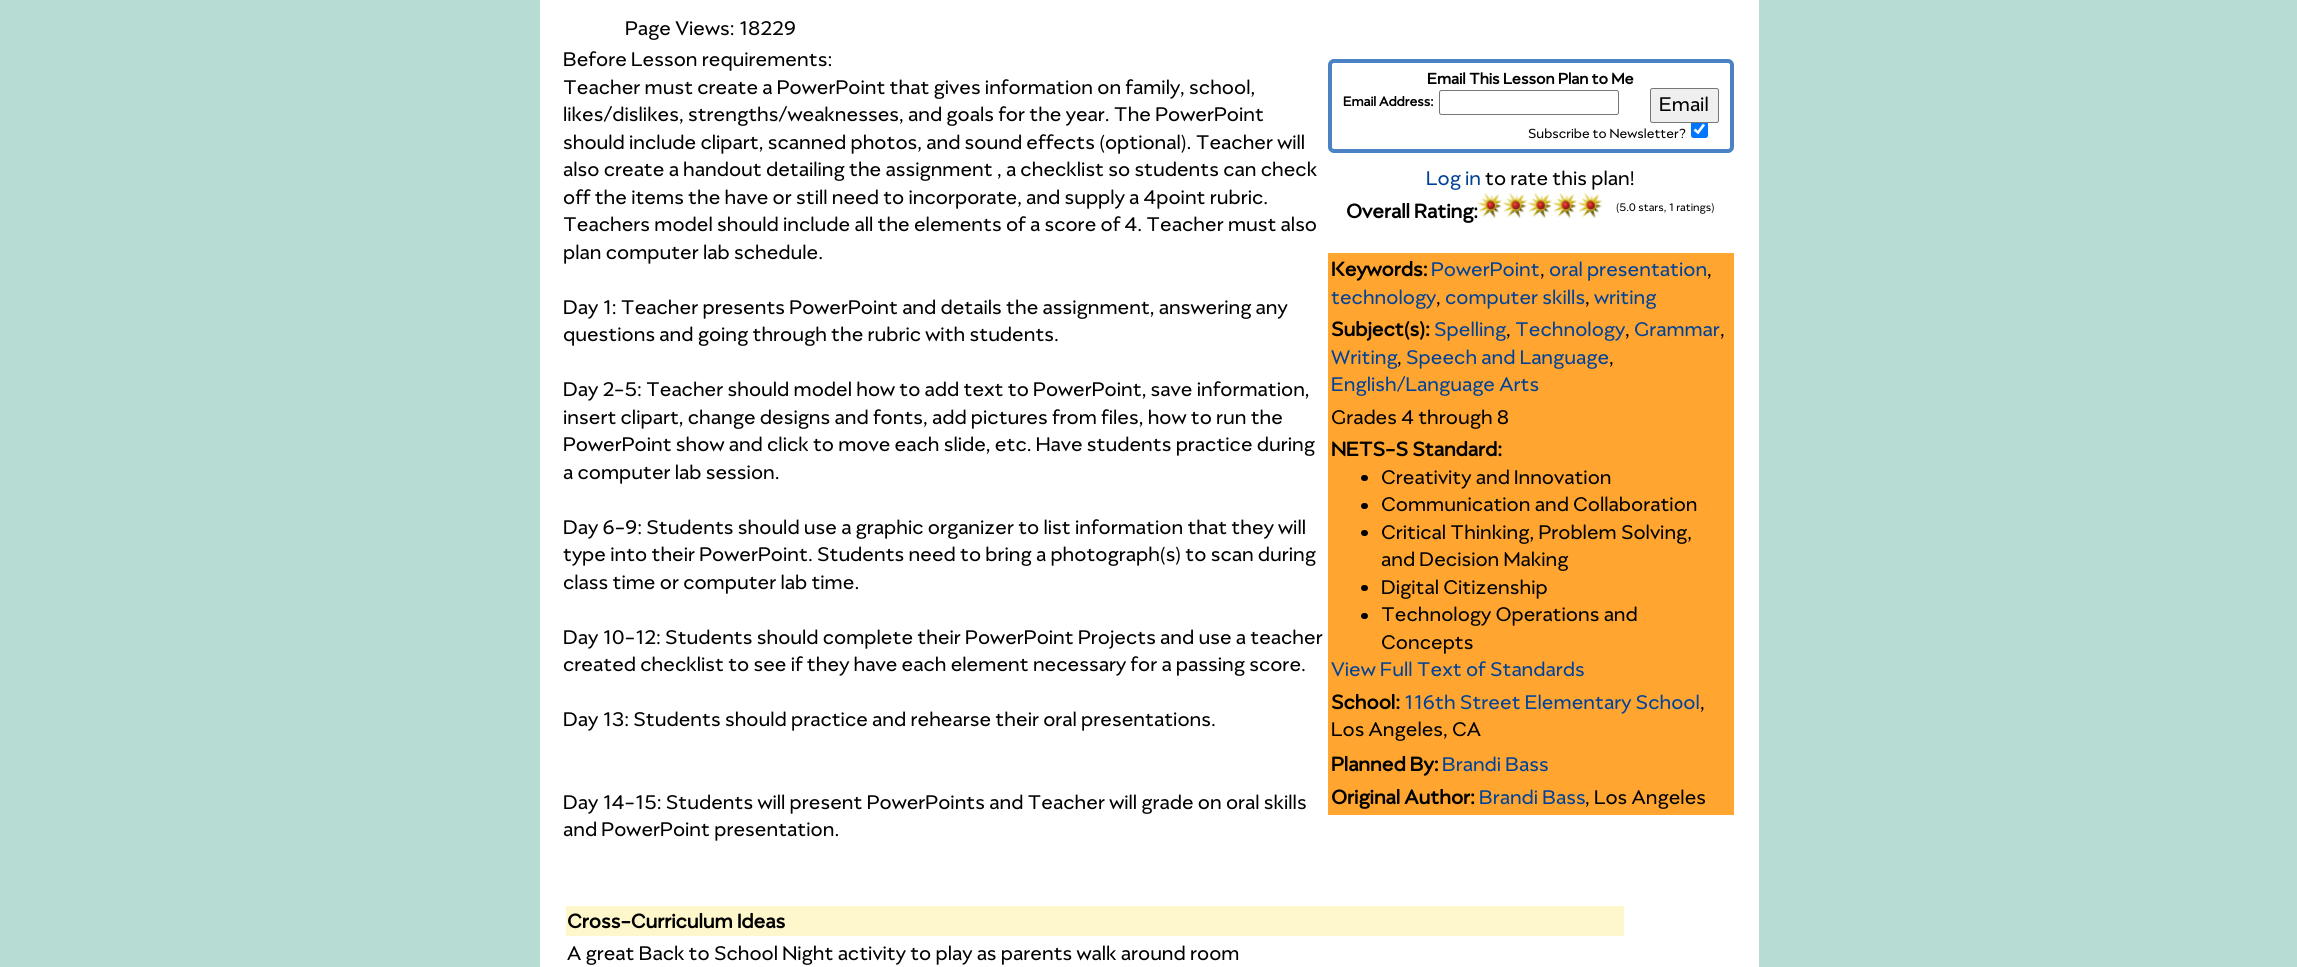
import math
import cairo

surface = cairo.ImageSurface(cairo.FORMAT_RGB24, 2297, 967)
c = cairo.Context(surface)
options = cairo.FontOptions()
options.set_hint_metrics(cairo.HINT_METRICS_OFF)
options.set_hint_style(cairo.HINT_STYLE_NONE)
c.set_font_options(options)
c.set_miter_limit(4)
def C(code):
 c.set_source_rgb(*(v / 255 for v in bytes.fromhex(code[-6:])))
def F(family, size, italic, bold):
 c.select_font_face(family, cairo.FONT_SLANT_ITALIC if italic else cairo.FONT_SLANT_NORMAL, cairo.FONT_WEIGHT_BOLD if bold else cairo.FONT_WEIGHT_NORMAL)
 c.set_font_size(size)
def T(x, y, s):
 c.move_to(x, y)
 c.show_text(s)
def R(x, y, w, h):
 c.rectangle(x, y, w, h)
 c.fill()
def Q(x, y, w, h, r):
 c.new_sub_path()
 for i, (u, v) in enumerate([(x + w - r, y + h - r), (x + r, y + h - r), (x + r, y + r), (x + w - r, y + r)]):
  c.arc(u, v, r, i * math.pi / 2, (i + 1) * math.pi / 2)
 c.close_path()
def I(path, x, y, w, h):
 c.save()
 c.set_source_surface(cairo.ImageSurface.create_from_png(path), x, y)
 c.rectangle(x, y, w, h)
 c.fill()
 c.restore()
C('b6dcd3')
c.paint()
C('ffffff')
R(540,0,1219,967)
F('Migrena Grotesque',22.5,0,0)
C('000000')
T(625,35,'Page Views: 18229')
T(563,66,'Before Lesson requirements:')
T(563,94,'Teacher must create a PowerPoint that gives information on family, school,')
T(563,121,'likes/dislikes, strengths/weaknesses, and goals for the year. The PowerPoint')
T(563,149,'should include clipart, scanned photos, and sound effects (optional). Teacher will')
T(563,176,'also create a handout detailing the assignment , a checklist so students can check')
T(563,204,'off the items the have or still need to incorporate, and supply a 4point rubric.')
T(563,231,'Teachers model should include all the elements of a score of 4. Teacher must also')
T(563,259,'plan computer lab schedule.')
T(563,314,'Day 1: Teacher presents PowerPoint and details the assignment, answering any')
T(563,341,'questions and going through the rubric with students.')
T(563,396,'Day 2-5: Teacher should model how to add text to PowerPoint, save information,')
T(563,424,'insert clipart, change designs and fonts, add pictures from files, how to run the')
T(563,451,'PowerPoint show and click to move each slide, etc. Have students practice during')
T(563,479,'a computer lab session.')
T(563,534,'Day 6-9: Students should use a graphic organizer to list information that they will')
T(563,561,'type into their PowerPoint. Students need to bring a photograph(s) to scan during')
T(563,589,'class time or computer lab time.')
T(563,644,'Day 10-12: Students should complete their PowerPoint Projects and use a teacher')
T(563,671,'created checklist to see if they have each element necessary for a passing score.')
T(563,726,'Day 13: Students should practice and rehearse their oral presentations.')
T(563,809,'Day 14-15: Students will present PowerPoints and Teacher will grade on oral skills')
T(563,836,'and PowerPoint presentation.')
Q(1330,61,402,90,4)
C('4b82c3')
c.set_line_width(4)
c.stroke()
F('Migrena Grotesque',17.5,0,1)
C('000000')
T(1427,84,'Email This Lesson Plan to Me')
F('Migrena Grotesque',15,0,1)
T(1343,106,'Email Address:')
Q(1439.5,90.5,179,24,2)
C('767676')
c.set_line_width(1)
c.stroke()
C('0075ff')
Q(1691,121,17,17,2.5)
c.fill()
C('efefef')
Q(1650.5,88.5,68,34,2)
c.fill_preserve()
C('767676')
c.stroke()
F('Migrena Grotesque',22.5,0,0)
C('000000')
T(1659,111,'Email')
F('Migrena Grotesque',15,0,0)
T(1528,138,'Subscribe to Newsletter?')
c.new_path()
c.move_to(1694.5,129.5)
c.line_to(1698,132.5)
c.line_to(1704,124.5)
C('ffffff')
c.set_line_width(2.6)
c.stroke()
F('Migrena Grotesque',22.5,0,0)
C('004298')
T(1426,185,'Log in')
C('000000')
T(1485,185,'to rate this plan!')
F('Migrena Grotesque',22.5,0,1)
T(1346,218,'Overall Rating:')
I('1.png',1477,192,26,26)
I('2.png',1502,192,26,26)
I('2.png',1527,192,26,26)
I('3.png',1552,192,26,26)
I('2.png',1577,192,26,26)
F('Migrena Grotesque',12.5,0,0)
T(1616,211,'(5.0 stars, 1 ratings)')
C('ffa530')
R(1328,253,406,562)
F('Migrena Grotesque',22.5,0,1)
C('000000')
T(1331,276,'Keywords:')
F('Migrena Grotesque',22.5,0,0)
C('004298')
T(1431,276,'PowerPoint')
C('000000')
T(1540,276,',')
C('004298')
T(1549,276,'oral presentation')
C('000000')
T(1707,276,',')
C('004298')
T(1331,304,'technology')
C('000000')
T(1436,304,',')
C('004298')
T(1445,304,'computer skills')
C('000000')
T(1585,304,',')
C('004298')
T(1594,304,'writing')
F('Migrena Grotesque',22.5,0,1)
C('000000')
T(1331,336,'Subject(s):')
F('Migrena Grotesque',22.5,0,0)
C('004298')
T(1434,336,'Spelling')
C('000000')
T(1506,336,',')
C('004298')
T(1515,336,'Technology')
C('000000')
T(1625,336,',')
C('004298')
T(1634,336,'Grammar')
C('000000')
T(1720,336,',')
C('004298')
T(1331,364,'Writing')
C('000000')
T(1397,364,',')
C('004298')
T(1406,364,'Speech and Language')
C('000000')
T(1609,364,',')
C('004298')
T(1331,391,'English/Language Arts')
C('000000')
T(1331,424,'Grades 4 through 8')
F('Migrena Grotesque',22.5,0,1)
T(1331,456,'NETS-S Standard:')
Q(1361,475,7,6,3)
c.fill()
F('Migrena Grotesque',22.5,0,0)
T(1381,484,'Creativity and Innovation')
Q(1361,503,7,6,3)
c.fill()
T(1381,511,'Communication and Collaboration')
Q(1361,530,7,6,3)
c.fill()
T(1381,539,'Critical Thinking, Problem Solving,')
T(1381,566,'and Decision Making')
Q(1361,585,7,6,3)
c.fill()
T(1381,594,'Digital Citizenship')
Q(1361,613,7,6,3)
c.fill()
T(1381,621,'Technology Operations and')
T(1381,649,'Concepts')
C('004298')
T(1331,676,'View Full Text of Standards')
F('Migrena Grotesque',22.5,0,1)
C('000000')
T(1331,709,'School:')
F('Migrena Grotesque',22.5,0,0)
C('004298')
T(1404,709,'116th Street Elementary School')
C('000000')
T(1700,709,',')
T(1331,736,'Los Angeles, CA')
F('Migrena Grotesque',22.5,0,1)
T(1331,771,'Planned By:')
F('Migrena Grotesque',22.5,0,0)
C('004298')
T(1442,771,'Brandi Bass')
F('Migrena Grotesque',22.5,0,1)
C('000000')
T(1331,804,'Original Author:')
F('Migrena Grotesque',22.5,0,0)
C('004298')
T(1479,804,'Brandi Bass')
C('000000')
T(1585,804,', Los Angeles')
C('fef7cb')
R(566,906,1058,30)
F('Migrena Grotesque',22.5,0,1)
C('000000')
T(567,928,'Cross-Curriculum Ideas')
F('Migrena Grotesque',22.5,0,0)
T(567,960,'A great Back to School Night activity to play as parents walk around room')
surface.write_to_png('o.png')
